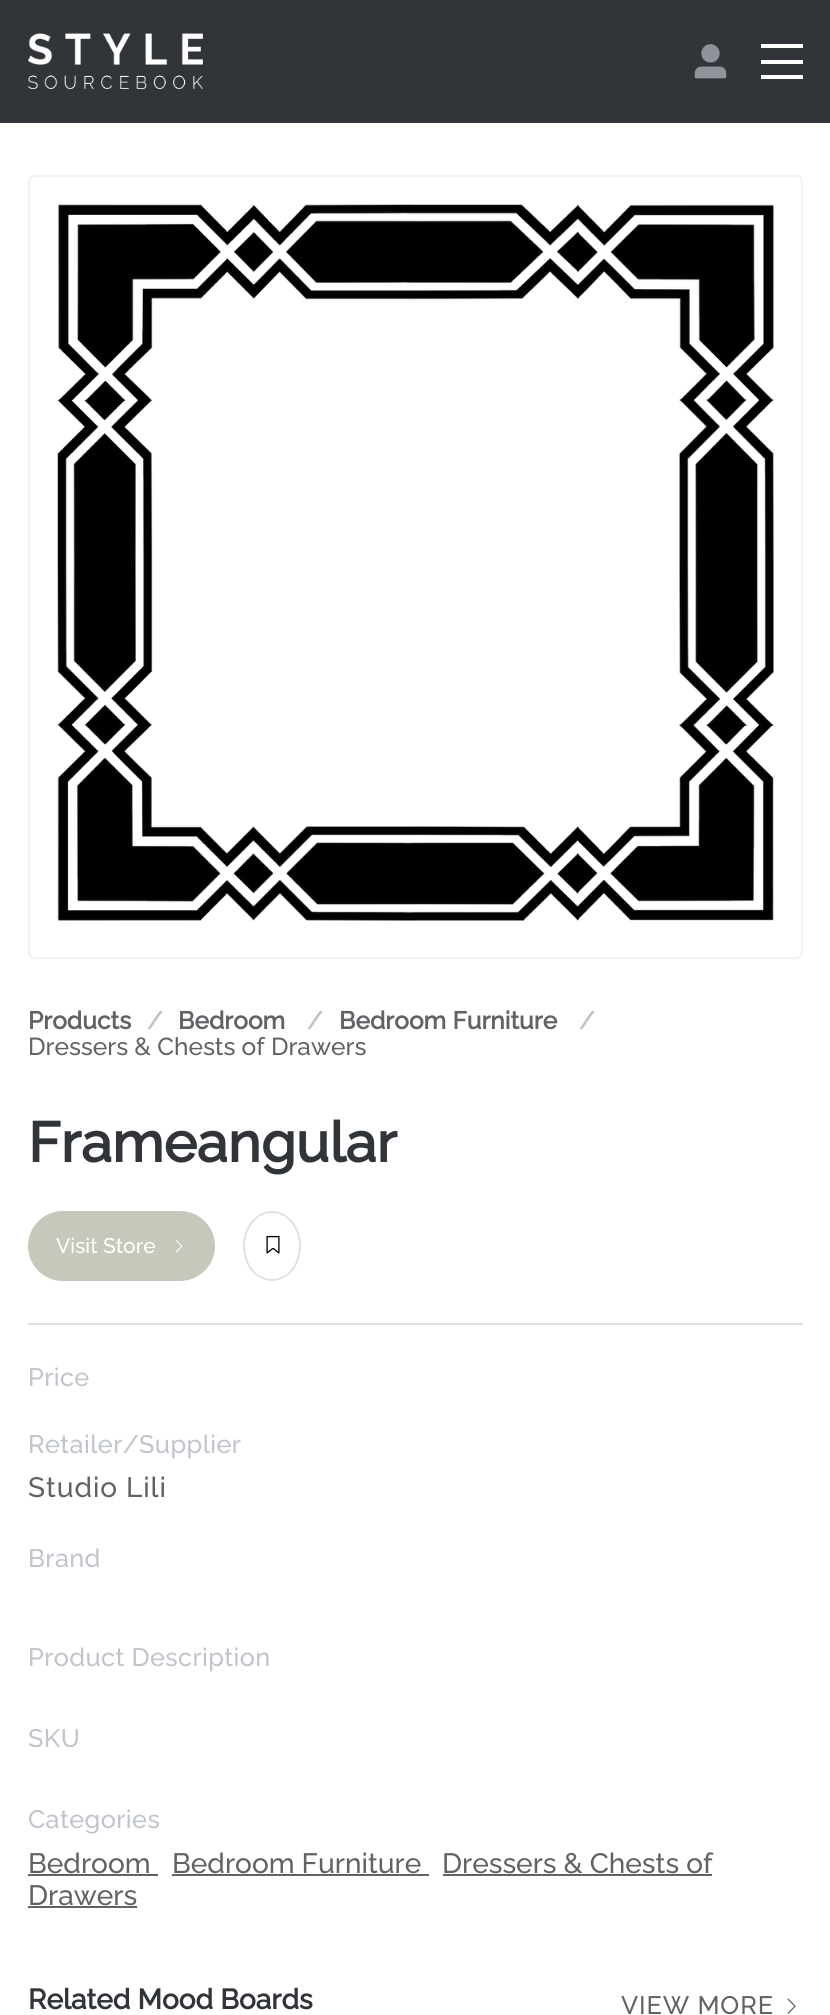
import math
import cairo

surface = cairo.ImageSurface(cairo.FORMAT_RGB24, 830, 2015)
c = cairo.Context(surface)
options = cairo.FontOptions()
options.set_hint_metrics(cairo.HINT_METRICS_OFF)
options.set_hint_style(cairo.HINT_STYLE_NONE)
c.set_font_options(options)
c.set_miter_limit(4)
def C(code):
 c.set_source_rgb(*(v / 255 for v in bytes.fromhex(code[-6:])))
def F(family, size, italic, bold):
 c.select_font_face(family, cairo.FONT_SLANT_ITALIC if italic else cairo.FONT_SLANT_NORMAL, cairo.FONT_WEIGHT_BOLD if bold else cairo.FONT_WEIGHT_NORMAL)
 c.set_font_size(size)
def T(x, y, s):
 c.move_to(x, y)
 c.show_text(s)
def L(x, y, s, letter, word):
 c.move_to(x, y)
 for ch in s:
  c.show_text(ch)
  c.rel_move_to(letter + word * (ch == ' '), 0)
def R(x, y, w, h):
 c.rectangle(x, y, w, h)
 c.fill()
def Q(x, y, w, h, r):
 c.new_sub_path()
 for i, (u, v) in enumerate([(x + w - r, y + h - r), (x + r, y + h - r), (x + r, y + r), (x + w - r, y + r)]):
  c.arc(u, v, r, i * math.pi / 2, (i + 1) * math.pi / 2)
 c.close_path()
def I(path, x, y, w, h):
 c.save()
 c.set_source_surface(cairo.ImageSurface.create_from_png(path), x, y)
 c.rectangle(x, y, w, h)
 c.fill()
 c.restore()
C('ffffff')
c.paint()
C('31353a')
R(0,0,830,123)
I('1.png',28,33,175,56)
I('2.png',694,44,33,35)
C('ffffff')
R(761,44,42,4)
R(761,60,42,4)
R(761,75,42,4)
Q(29,176,773,782,6)
C('f2f2f0')
c.stroke()
I('3.png',57,204,717,717)
F('Raleway',24.5,0,1)
C('606266')
T(28,1029,'Products')
C('c0c4cc')
T(147,1029,'/')
C('606266')
T(178,1029,'Bedroom')
C('c0c4cc')
T(307,1029,'/')
C('606266')
T(339,1029,'Bedroom Furniture')
C('c0c4cc')
T(579,1029,'/')
F('Raleway Medium',24.5,0,0)
C('606266')
T(28,1055,'Dressers & Chests of Drawers')
F('Raleway',56,0,1)
C('31353a')
T(28,1162,'Frameangular')
C('c7c7bb')
Q(29,1212,185,68,34)
c.fill_preserve()
c.stroke()
F('Raleway Medium',21,0,0)
C('ffffff')
T(56,1253,'Visit Store')
I('4.png',175,1240,8,13)
c.new_path()
c.move_to(272,1212)
c.curve_to(287.5,1212,300,1227,300,1246)
c.curve_to(300,1265,287.5,1280,272,1280)
c.curve_to(256.5,1280,244,1265,244,1246)
c.curve_to(244,1227,256.5,1212,272,1212)
c.close_path()
C('dcdfe6')
c.set_line_width(1.8)
c.stroke()
I('5.png',266,1235,14,19)
R(28,1323,775,2)
F('Raleway Medium',25.25,0,0)
C('c0c4cc')
L(28,1386,'Price',.4,0)
L(28,1453,'Retailer/Supplier',.4,0)
F('Raleway Medium',28,0,0)
C('606266')
L(28,1497,'Studio Lili',.9,0)
F('Raleway Medium',25.25,0,0)
C('c0c4cc')
L(28,1567,'Brand',.4,0)
L(28,1666,'Product Description',.4,0)
L(28,1747,'SKU',.4,0)
L(28,1828,'Categories',.4,0)
F('Raleway Medium',28,0,0)
C('606266')
T(28,1873,'Bedroom')
R(28,1874,130,2)
T(172,1873,'Bedroom Furniture')
R(172,1874,257,2)
T(442,1873,'Dressers & Chests of')
R(443,1874,269,2)
T(28,1905,'Drawers')
R(28,1906,109,2)
F('Raleway',28,0,1)
C('31353a')
T(28,2009,'Related Mood Boards')
F('Raleway Medium',25.25,0,0)
C('606266')
L(621,2014,'VIEW MORE',.9,0)
I('6.png',787,1998,9,16)
surface.write_to_png('o.png')
